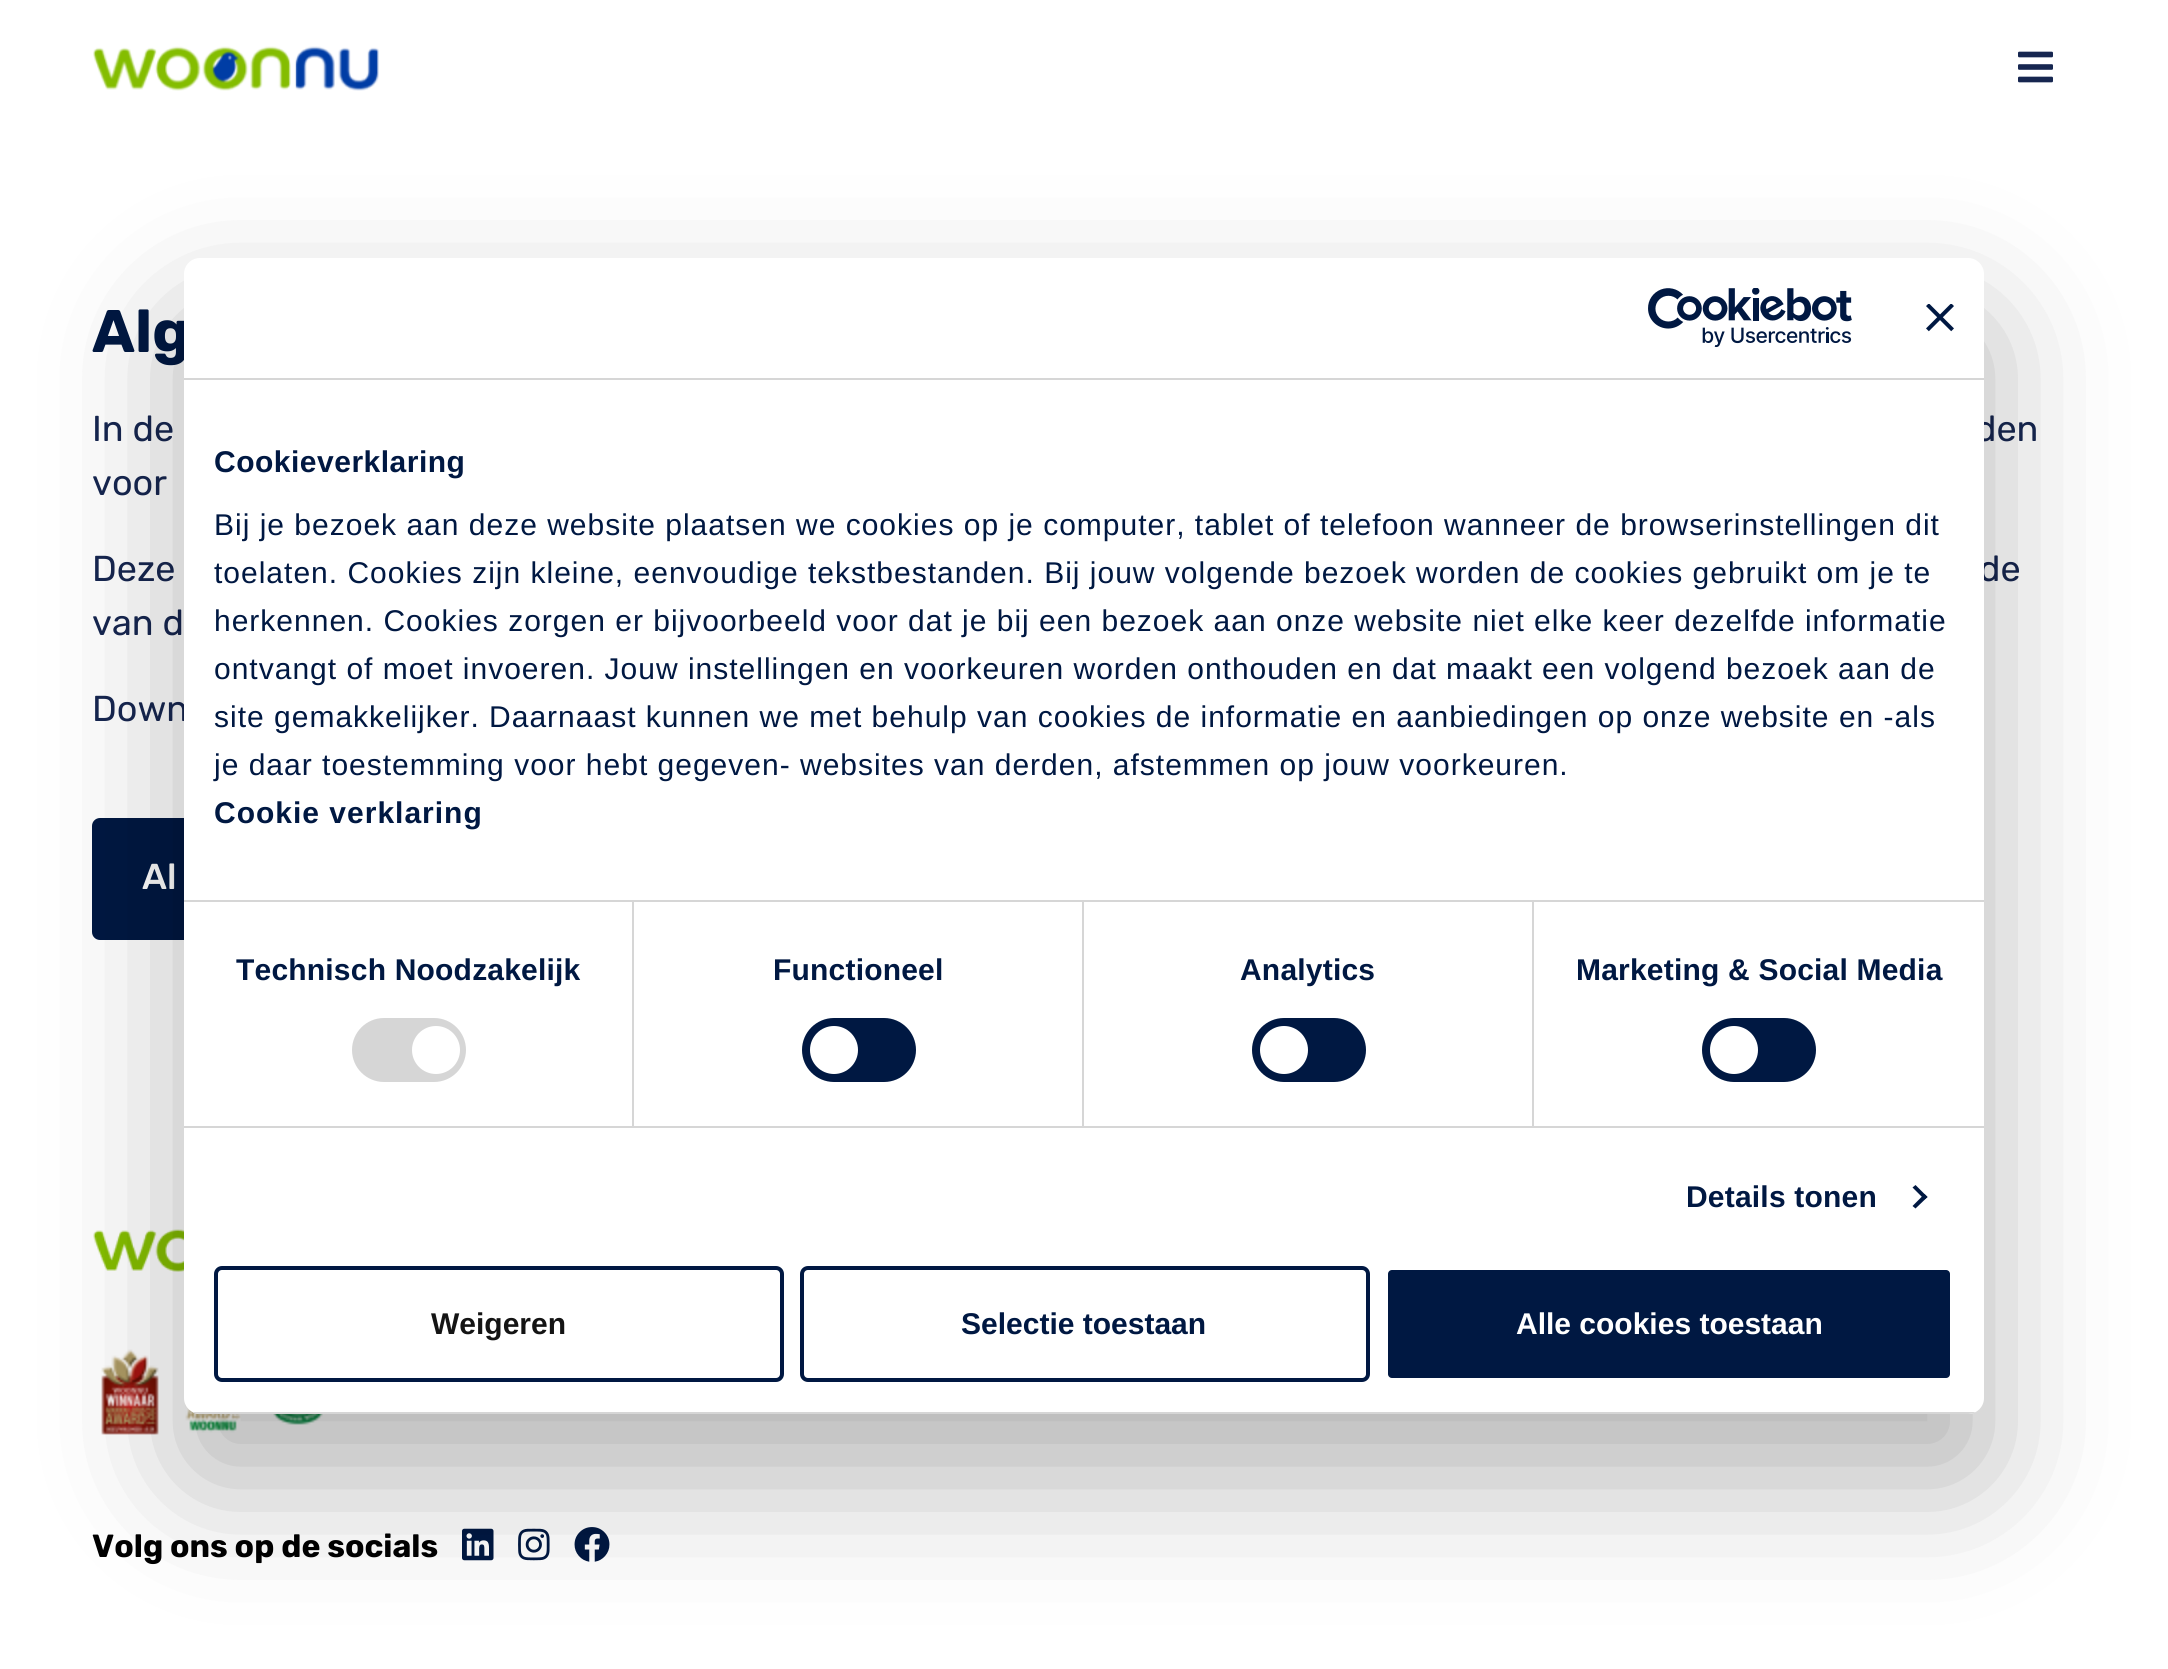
import math
import cairo

surface = cairo.ImageSurface(cairo.FORMAT_RGB24, 2168, 1669)
c = cairo.Context(surface)
options = cairo.FontOptions()
options.set_hint_metrics(cairo.HINT_METRICS_OFF)
options.set_hint_style(cairo.HINT_STYLE_NONE)
c.set_font_options(options)
c.set_miter_limit(4)
def C(code):
 c.set_source_rgb(*(v / 255 for v in bytes.fromhex(code[-6:])))
def F(family, size, italic, bold):
 c.select_font_face(family, cairo.FONT_SLANT_ITALIC if italic else cairo.FONT_SLANT_NORMAL, cairo.FONT_WEIGHT_BOLD if bold else cairo.FONT_WEIGHT_NORMAL)
 c.set_font_size(size)
def T(x, y, s):
 c.move_to(x, y)
 c.show_text(s)
def L(x, y, s, letter, word):
 c.move_to(x, y)
 for ch in s:
  c.show_text(ch)
  c.rel_move_to(letter + word * (ch == ' '), 0)
def R(x, y, w, h):
 c.rectangle(x, y, w, h)
 c.fill()
def Q(x, y, w, h, r):
 c.new_sub_path()
 for i, (u, v) in enumerate([(x + w - r, y + h - r), (x + r, y + h - r), (x + r, y + r), (x + w - r, y + r)]):
  c.arc(u, v, r, i * math.pi / 2, (i + 1) * math.pi / 2)
 c.close_path()
def S(x, y, w, h, r, blur, alpha):
 c.push_group_with_content(cairo.CONTENT_ALPHA)
 c.set_operator(cairo.OPERATOR_SOURCE)
 for i in range(15, -16, -2):
  e = blur * i / 6
  if min(w, h) + 2 * e > 0:
   c.set_source_rgba(0, 0, 0, alpha * math.erfc((i - 1) / 8.5) / 2)
   Q(x - e, y - e, w + 2 * e, h + 2 * e, max(0, min(r + e + blur * .6, min(w, h) / 2 + e)))
   c.fill()
 c.mask(c.pop_group())
def I(path, x, y, w, h):
 c.save()
 c.set_source_surface(cairo.ImageSurface.create_from_png(path), x, y)
 c.rectangle(x, y, w, h)
 c.fill()
 c.restore()
C('ffffff')
c.paint()
I('1.png',93,46,286,45)
I('2.png',2018,51,35,32)
F('Rubik',60,0,1)
C('001842')
T(92,352,'Alg')
F('Rubik',36,0,0)
C('162650')
T(92,441,'In de')
T(1975,441,'den')
T(92,495,'voor')
T(92,581,'Deze')
T(1979,581,'de')
T(92,635,'van d')
T(92,721,'Down')
C('001842')
Q(92,818,516,122,8)
c.fill()
F('Rubik Medium',36,0,0)
C('ffffff')
T(142,889,'Al')
I('5.png',93,1229,91,43)
I('6.png',101,1349,316,86)
I('7.png',462,1528,32,33)
I('8.png',518,1528,32,33)
I('9.png',574,1527,36,35)
C('000000')
S(184,322,1800,1156,16,68,.3)
C('ffffff')
Q(184,258,1800,1156,16)
c.fill()
C('d6d6d6')
R(184,378,1800,2)
I('3.png',1648,288,204,60)
I('4.png',1926,304,28,28)
R(184,900,1800,2)
F('Liberation Sans',30,0,1)
C('001842')
L(214,472,'Cookieverklaring',.5,0)
F('Liberation Sans',30,0,0)
L(214,535,'Bij je bezoek aan deze website plaatsen we cookies op je computer, tablet of telefoon wanneer de browserinstellingen dit',1,0)
L(214,583,'toelaten. Cookies zijn kleine, eenvoudige tekstbestanden. Bij jouw volgende bezoek worden de cookies gebruikt om je te',1,0)
L(214,631,'herkennen. Cookies zorgen er bijvoorbeeld voor dat je bij een bezoek aan onze website niet elke keer dezelfde informatie',1,0)
L(214,679,'ontvangt of moet invoeren. Jouw instellingen en voorkeuren worden onthouden en dat maakt een volgend bezoek aan de',1,0)
L(214,727,'site gemakkelijker. Daarnaast kunnen we met behulp van cookies de informatie en aanbiedingen op onze website en -als',1,0)
L(214,775,'je daar toestemming voor hebt gegeven- websites van derden, afstemmen op jouw voorkeuren.',1,0)
F('Liberation Sans',30,0,1)
L(214,823,'Cookie verklaring',1,0)
C('d6d6d6')
R(184,1126,1800,2)
R(632,902,2,224)
C('001842')
L(236,980,'Technisch Noodzakelijk',.2,0)
C('d6d6d6')
Q(352,1018,114,64,32)
c.fill()
C('ffffff')
c.arc(436,1050,24,0,2 * math.pi)
c.fill()
C('d6d6d6')
R(1082,902,2,224)
C('001842')
L(773,980,'Functioneel',.2,0)
Q(802,1018,114,64,32)
c.fill()
C('ffffff')
c.arc(834,1050,24,0,2 * math.pi)
c.fill()
C('d6d6d6')
R(1532,902,2,224)
C('001842')
L(1240,980,'Analytics',.2,0)
Q(1252,1018,114,64,32)
c.fill()
C('ffffff')
c.arc(1284,1050,24,0,2 * math.pi)
c.fill()
C('001842')
L(1576,980,'Marketing & Social Media',.2,0)
Q(1702,1018,114,64,32)
c.fill()
C('ffffff')
c.arc(1734,1050,24,0,2 * math.pi)
c.fill()
C('001842')
L(1686,1207,'Details tonen',.2,0)
c.new_path()
c.move_to(1915.5,1185)
c.line_to(1927.5,1197)
c.line_to(1924.5,1199.5)
c.line_to(1912.5,1187.5)
c.close_path()
c.fill()
c.new_path()
c.move_to(1924.5,1194)
c.line_to(1927.5,1197)
c.line_to(1915.5,1208.5)
c.line_to(1912.5,1206)
c.close_path()
c.fill()
c.save()
Q(184,258,1800,1156,16)
c.clip()
C('d6d6d6')
R(184,1412,1800,2)
c.restore()
Q(216,1268,566,112,6)
c.set_line_width(4)
c.stroke()
C('141414')
T(431,1334,'Weigeren')
Q(802,1268,566,112,6)
C('001842')
c.stroke()
T(961,1334,'Selectie toestaan')
Q(1386,1268,566,112,6)
c.fill_preserve()
C('ffffff')
c.stroke()
T(1516,1334,'Alle cookies toestaan')
F('Rubik',32,0,1)
C('000000')
T(92,1557,'Volg ons op de socials')
surface.write_to_png('o.png')
